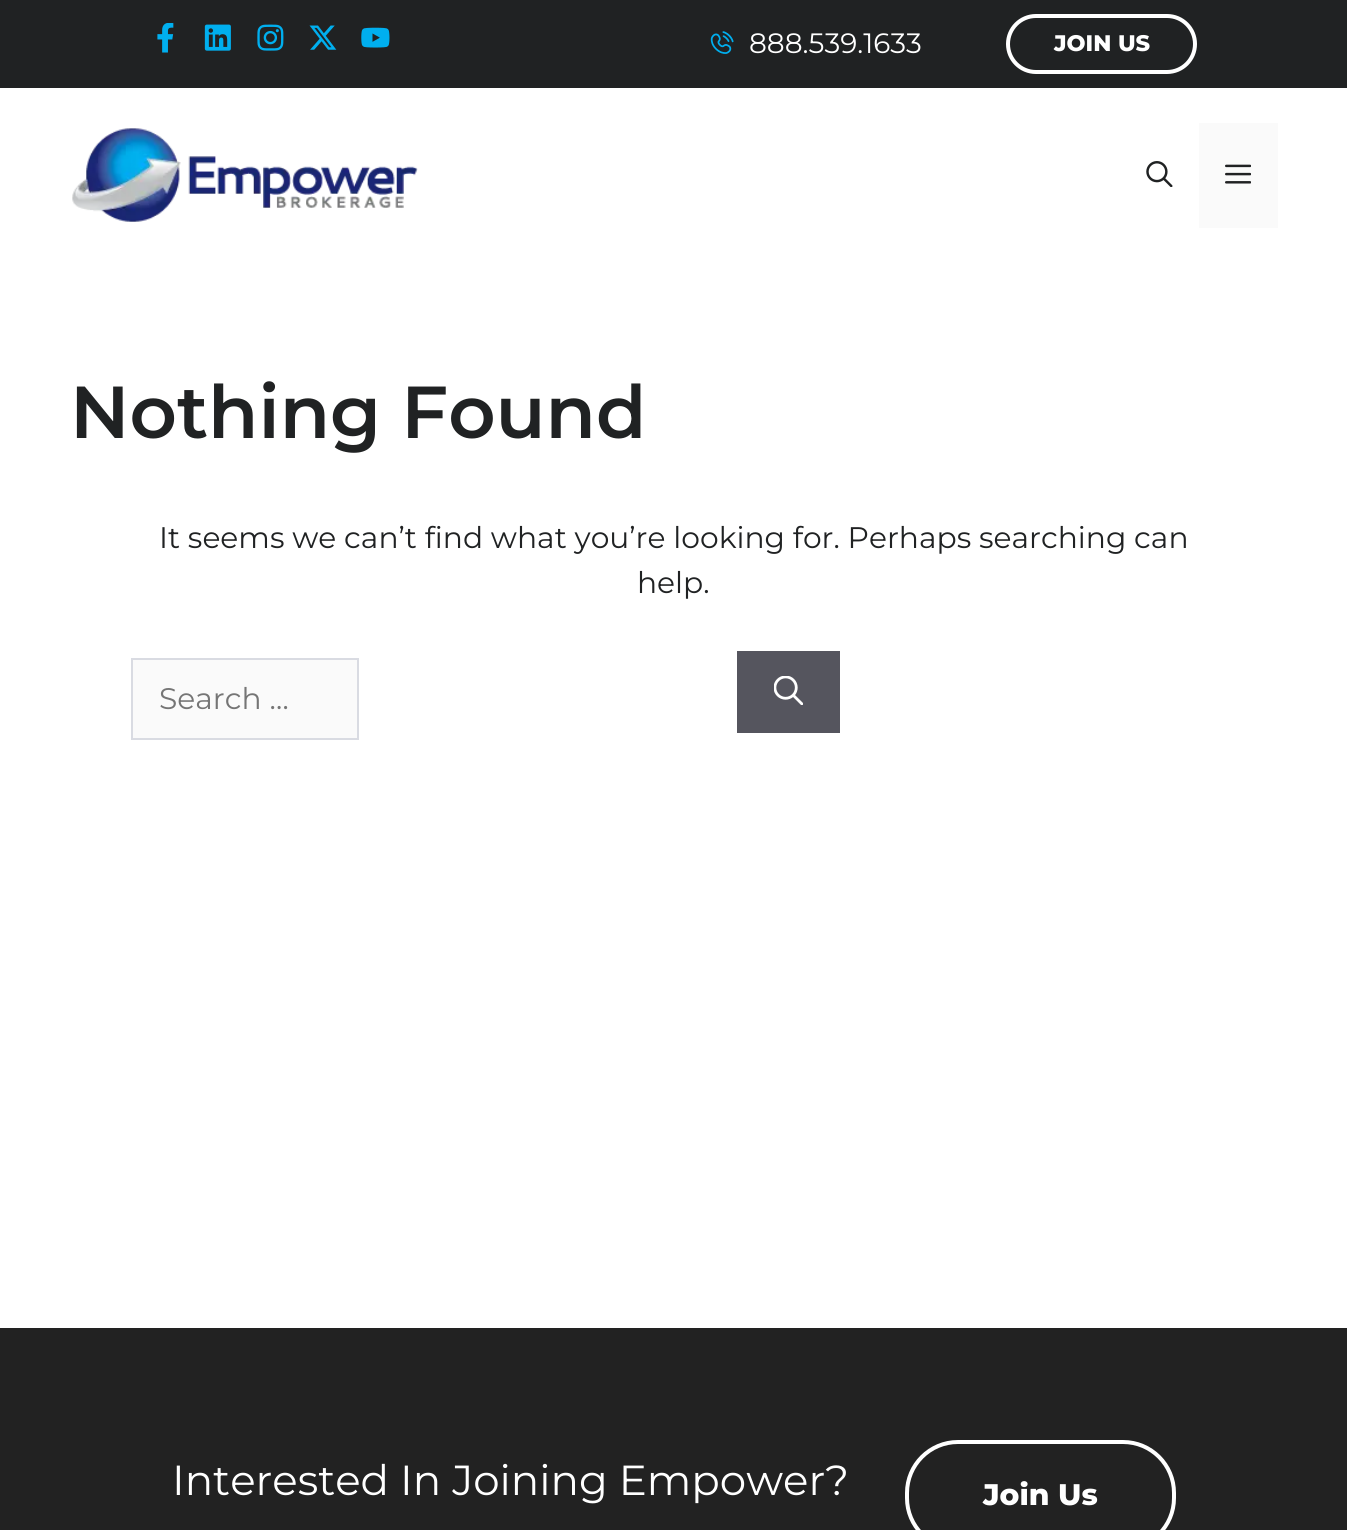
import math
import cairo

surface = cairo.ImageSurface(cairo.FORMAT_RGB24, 1347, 1530)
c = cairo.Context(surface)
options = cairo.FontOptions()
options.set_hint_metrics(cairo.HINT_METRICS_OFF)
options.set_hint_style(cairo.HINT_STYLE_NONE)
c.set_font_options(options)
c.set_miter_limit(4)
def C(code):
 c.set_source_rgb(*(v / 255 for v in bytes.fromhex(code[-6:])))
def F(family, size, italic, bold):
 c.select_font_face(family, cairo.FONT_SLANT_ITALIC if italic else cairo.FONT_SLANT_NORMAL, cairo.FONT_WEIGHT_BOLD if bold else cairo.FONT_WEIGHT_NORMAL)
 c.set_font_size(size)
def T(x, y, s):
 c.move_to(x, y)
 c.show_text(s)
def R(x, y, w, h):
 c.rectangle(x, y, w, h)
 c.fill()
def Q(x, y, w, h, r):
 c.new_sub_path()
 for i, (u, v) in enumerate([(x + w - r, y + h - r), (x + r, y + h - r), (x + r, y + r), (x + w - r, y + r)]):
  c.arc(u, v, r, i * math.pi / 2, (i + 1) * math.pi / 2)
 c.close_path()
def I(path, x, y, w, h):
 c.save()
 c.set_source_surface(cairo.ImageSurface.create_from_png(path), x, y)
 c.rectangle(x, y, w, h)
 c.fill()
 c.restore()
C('ffffff')
c.paint()
C('202223')
R(0,0,1347,88)
I('1.png',157,23,17,30)
I('2.png',204,24,27,27)
I('3.png',257,24,27,27)
I('4.png',309,25,28,25)
I('5.png',361,27,29,21)
I('6.png',710,31,24,23)
F('Montserrat Thin',28,0,0)
C('ffffff')
T(749,53,'888.539.1633')
Q(1008,16,187,56,28)
c.set_line_width(4)
c.stroke()
F('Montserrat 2 Thin',22.5,0,0)
T(1054,51,'JOIN US')
I('7.png',72,128,346,94)
I('8.png',1146,161,27,26)
C('fafafa')
R(1199,123,79,105)
I('9.png',1225,164,26,20)
F('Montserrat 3 Thin',73.5,0,0)
C('202223')
T(70,438,'Nothing Found')
F('Montserrat Thin',29.75,0,0)
T(159,548,'It seems we can’t find what you’re looking for. Perhaps searching can')
T(637,593,'help.')
C('fafafa')
c.rectangle(132,659,226,80)
c.fill_preserve()
C('d9dbe2')
c.set_line_width(2)
c.stroke()
C('757575')
T(159,709,'Search …')
C('55555e')
R(737,651,103,82)
I('10.png',774,676,29,29)
C('222222')
R(0,1328,1347,202)
F('Montserrat Thin',42,0,0)
C('ffffff')
T(172,1495,'Interested In Joining Empower?')
Q(907,1442,267,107,51)
c.set_line_width(4)
c.stroke()
F('Montserrat 2 Thin',29.75,0,0)
T(983,1505,'Join Us')
surface.write_to_png('o.png')
